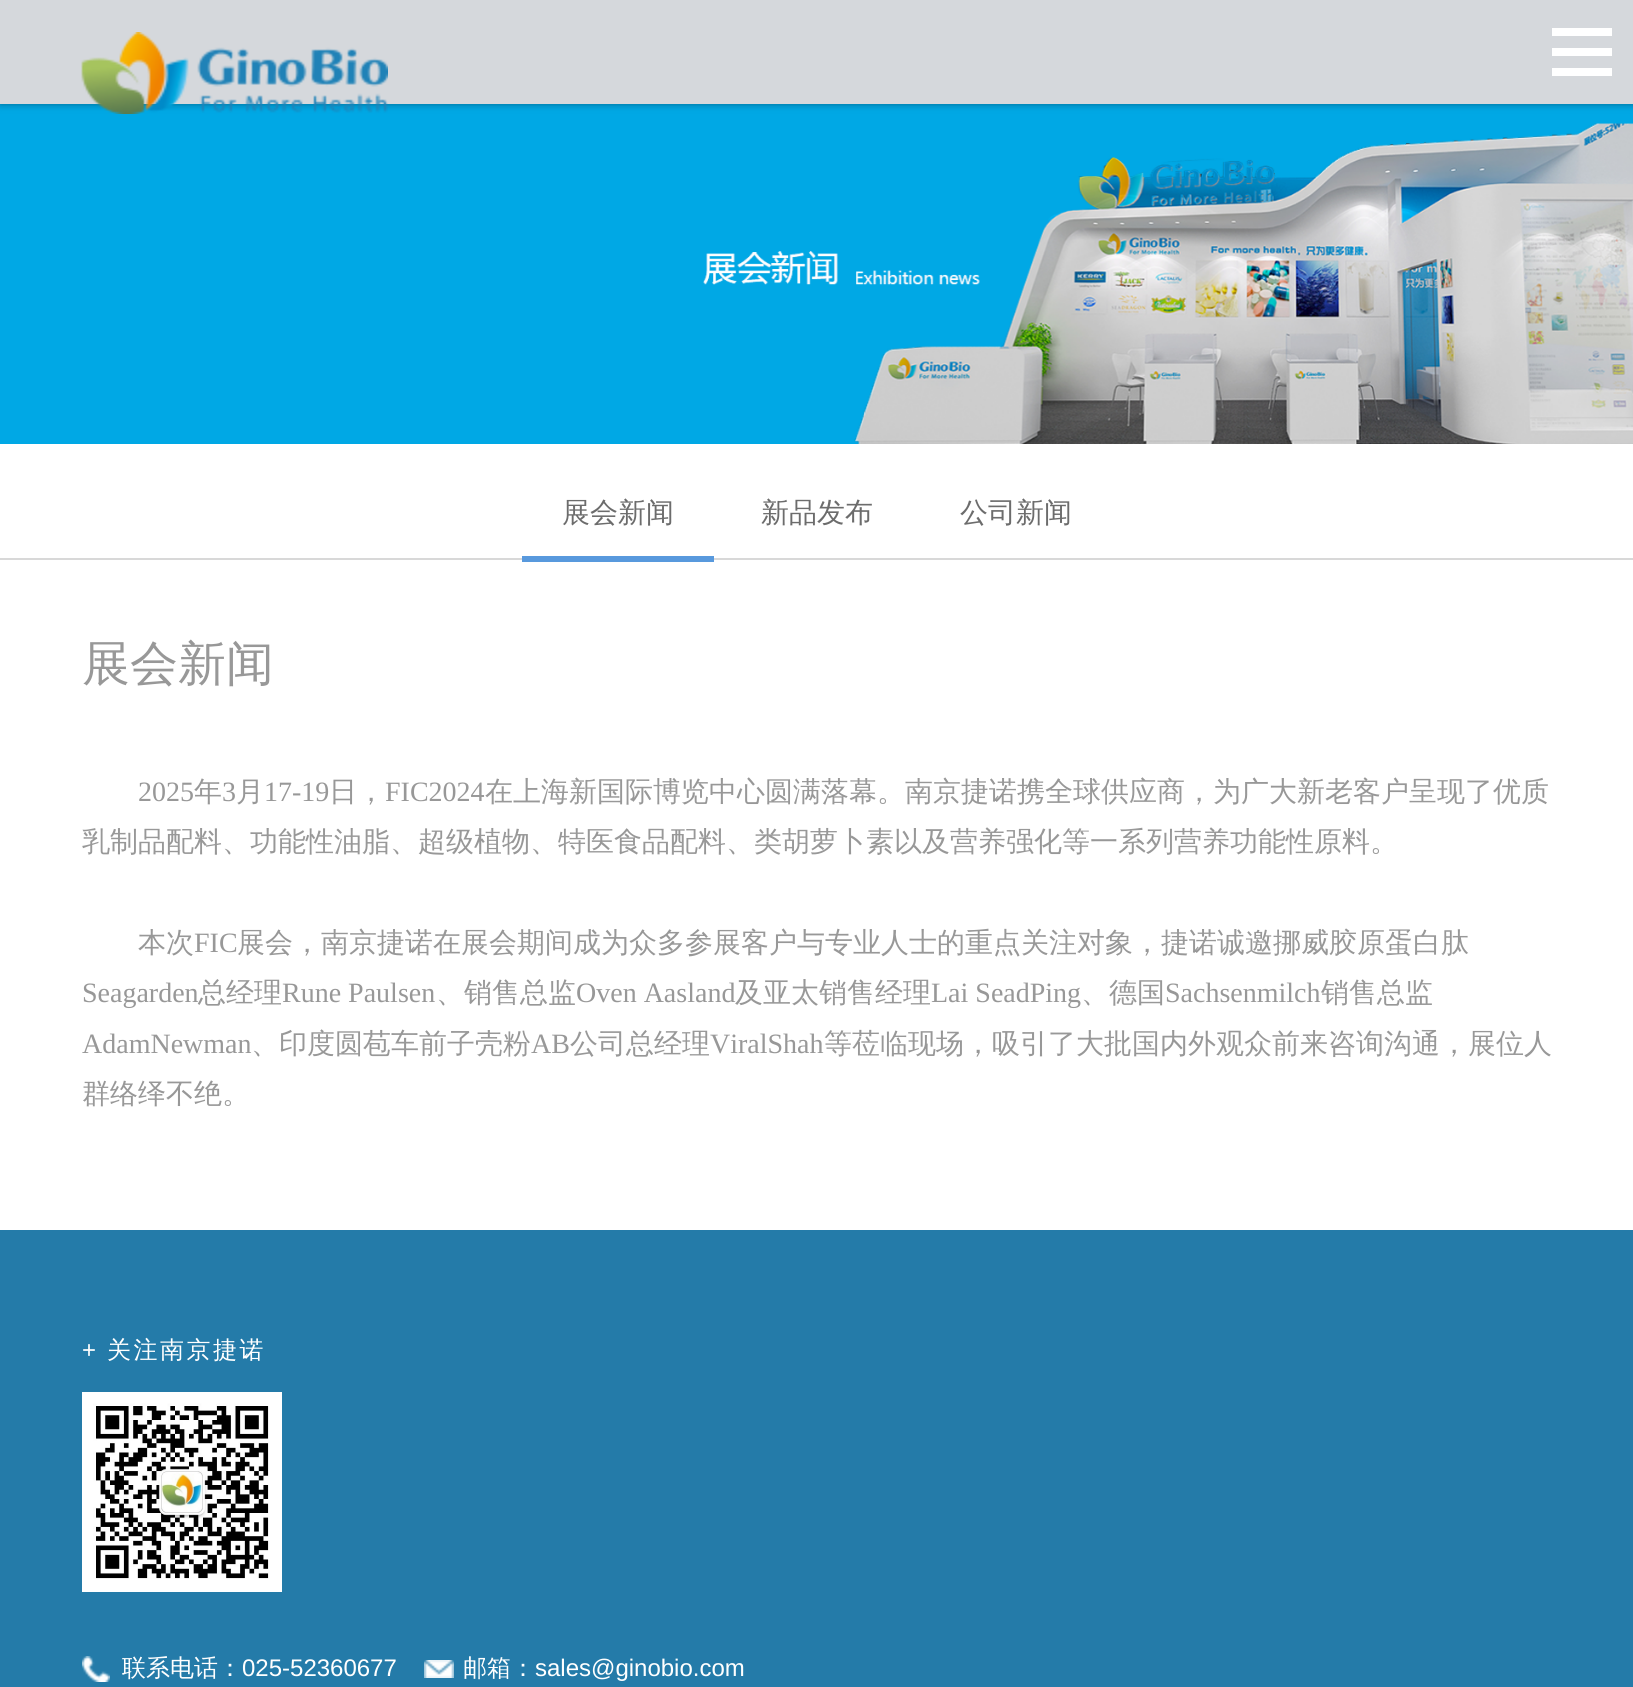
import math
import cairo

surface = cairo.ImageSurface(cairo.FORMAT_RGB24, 1633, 1687)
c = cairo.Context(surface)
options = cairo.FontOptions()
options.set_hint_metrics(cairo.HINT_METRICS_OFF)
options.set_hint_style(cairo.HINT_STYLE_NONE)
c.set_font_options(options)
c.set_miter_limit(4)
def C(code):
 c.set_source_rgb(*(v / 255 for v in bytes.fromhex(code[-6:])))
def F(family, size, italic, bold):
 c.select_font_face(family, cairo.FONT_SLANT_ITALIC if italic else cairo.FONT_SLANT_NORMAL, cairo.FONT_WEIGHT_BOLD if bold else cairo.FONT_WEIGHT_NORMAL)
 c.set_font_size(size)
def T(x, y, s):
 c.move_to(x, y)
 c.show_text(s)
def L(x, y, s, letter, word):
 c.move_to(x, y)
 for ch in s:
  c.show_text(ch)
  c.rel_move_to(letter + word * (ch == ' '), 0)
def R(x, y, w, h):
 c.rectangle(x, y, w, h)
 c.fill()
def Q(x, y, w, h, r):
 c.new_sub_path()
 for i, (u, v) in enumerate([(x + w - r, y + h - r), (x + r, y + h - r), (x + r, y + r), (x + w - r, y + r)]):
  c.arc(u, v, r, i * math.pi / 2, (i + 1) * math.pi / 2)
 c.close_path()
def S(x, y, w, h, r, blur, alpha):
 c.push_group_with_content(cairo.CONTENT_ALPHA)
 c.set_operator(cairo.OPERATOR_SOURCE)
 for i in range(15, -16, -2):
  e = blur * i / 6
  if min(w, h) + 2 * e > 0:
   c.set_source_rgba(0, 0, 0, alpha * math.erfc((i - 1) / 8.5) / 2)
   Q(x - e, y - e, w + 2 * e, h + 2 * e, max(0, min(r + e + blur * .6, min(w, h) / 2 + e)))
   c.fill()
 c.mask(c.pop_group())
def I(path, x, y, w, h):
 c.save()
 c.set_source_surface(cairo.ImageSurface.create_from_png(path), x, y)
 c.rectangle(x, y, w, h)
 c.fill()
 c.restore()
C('ffffff')
c.paint()
I('2.png',0,104,1633,340)
C('000000')
S(0,0,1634,104,0,4,.4)
C('d5d8dc')
R(0,0,1633,104)
I('1.png',81,32,307,82)
C('ffffff')
R(1552,28,60,8)
R(1552,48,60,8)
R(1552,68,60,8)
C('d8d8d8')
R(0,558,1633,2)
F('WenQuanYi Zen Hei Medium',28,0,0)
C('6c6c6c')
T(562,522,'展会新闻')
C('5899dd')
R(522,556,192,6)
C('6c6c6c')
T(761,522,'新品发布')
T(960,522,'公司新闻')
F('WenQuanYi Zen Hei Medium',48,0,0)
C('989898')
T(82,680,'展会新闻')
F('Liberation Serif',28,0,0)
T(138,801,'2025')
F('WenQuanYi Zen Hei Medium',28,0,0)
T(194,801,'年')
F('Liberation Serif',28,0,0)
T(222,801,'3')
F('WenQuanYi Zen Hei Medium',28,0,0)
T(236,801,'月')
F('Liberation Serif',28,0,0)
T(264,801,'17-19')
F('WenQuanYi Zen Hei Medium',28,0,0)
T(329,801,'日，')
F('Liberation Serif',28,0,0)
T(385,801,'FIC2024')
F('WenQuanYi Zen Hei Medium',28,0,0)
T(485,801,'在上海新国际博览中心圆满落幕。南京捷诺携全球供应商，为广大新老客户呈现了优质')
T(82,851,'乳制品配料、功能性油脂、超级植物、特医食品配料、类胡萝卜素以及营养强化等一系列营养功能性原料。')
T(138,952,'本次')
F('Liberation Serif',28,0,0)
T(194,952,'FIC')
F('WenQuanYi Zen Hei Medium',28,0,0)
T(237,952,'展会，南京捷诺在展会期间成为众多参展客户与专业人士的重点关注对象，捷诺诚邀挪威胶原蛋白肽')
F('Liberation Serif',28,0,0)
T(82,1002,'Seagarden')
F('WenQuanYi Zen Hei Medium',28,0,0)
T(198,1002,'总经理')
F('Liberation Serif',28,0,0)
T(282,1002,'Rune Paulsen')
F('WenQuanYi Zen Hei Medium',28,0,0)
T(436,1002,'、销售总监')
F('Liberation Serif',28,0,0)
T(576,1002,'Oven Aasland')
F('WenQuanYi Zen Hei Medium',28,0,0)
T(735,1002,'及亚太销售经理')
F('Liberation Serif',28,0,0)
T(931,1002,'Lai SeadPing')
F('WenQuanYi Zen Hei Medium',28,0,0)
T(1081,1002,'、德国')
F('Liberation Serif',28,0,0)
T(1165,1002,'Sachsenmilch')
F('WenQuanYi Zen Hei Medium',28,0,0)
T(1321,1002,'销售总监')
F('Liberation Serif',28,0,0)
T(82,1053,'AdamNewman')
F('WenQuanYi Zen Hei Medium',28,0,0)
T(251,1053,'、印度圆苞车前子壳粉')
F('Liberation Serif',28,0,0)
T(531,1053,'AB')
F('WenQuanYi Zen Hei Medium',28,0,0)
T(570,1053,'公司总经理')
F('Liberation Serif',28,0,0)
T(710,1053,'ViralShah')
F('WenQuanYi Zen Hei Medium',28,0,0)
T(824,1053,'等莅临现场，吸引了大批国内外观众前来咨询沟通，展位人')
T(82,1103,'群络绎不绝。')
C('247ba9')
R(0,1230,1633,457)
F('Liberation Sans',24,0,0)
C('ffffff')
L(82,1358,'+',2.5,0)
F('WenQuanYi Zen Hei Medium',24,0,0)
L(107,1358,'关注南京捷诺',2.5,0)
I('3.png',82,1392,200,200)
I('4.png',82,1656,28,26)
T(122,1676,'联系电话：')
F('Liberation Sans',24,0,0)
T(242,1676,'025-52360677')
I('5.png',424,1660,30,18)
F('WenQuanYi Zen Hei Medium',24,0,0)
T(463,1676,'邮箱：')
F('Liberation Sans',24,0,0)
T(535,1676,'sales@ginobio.com')
surface.write_to_png('o.png')
